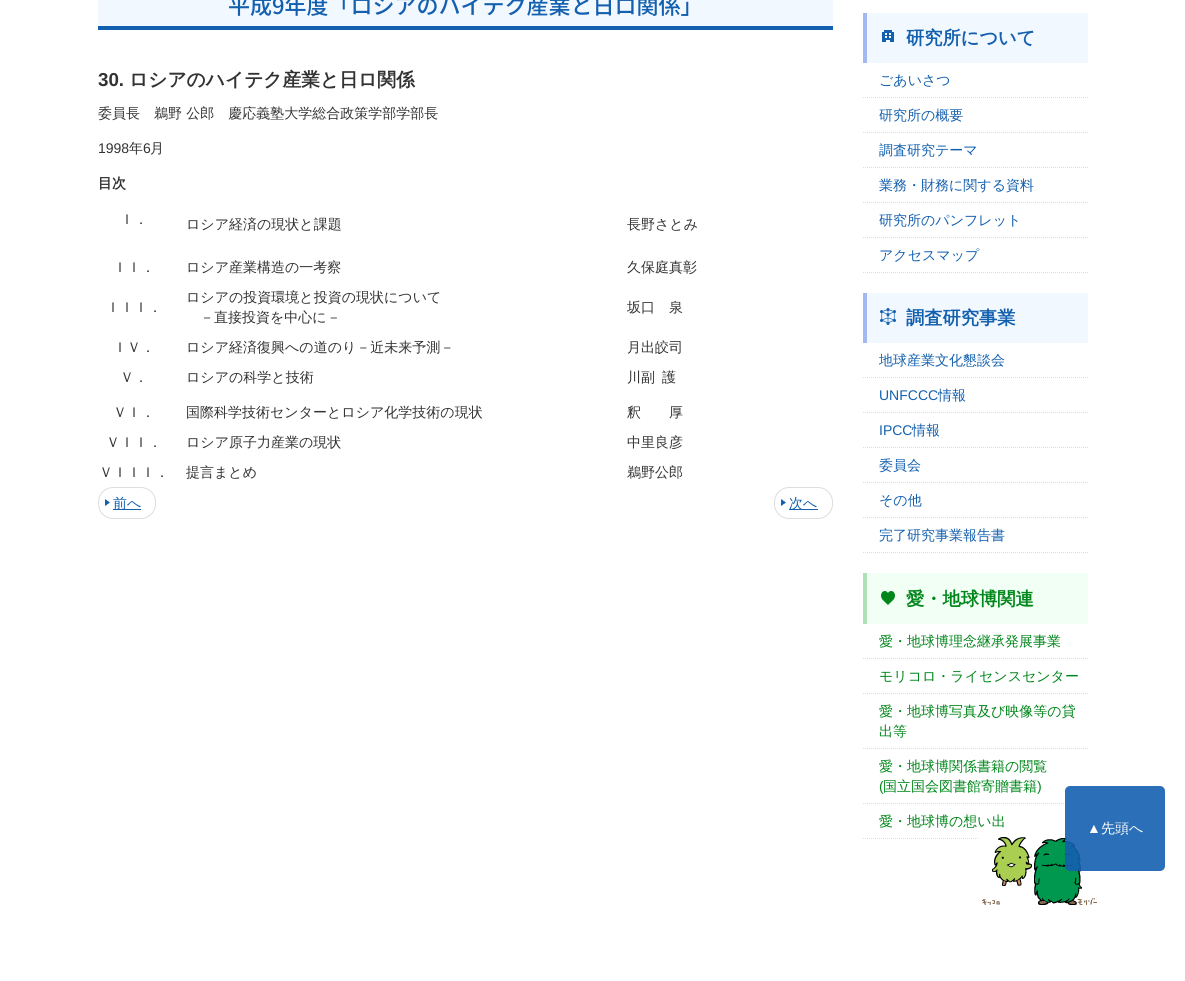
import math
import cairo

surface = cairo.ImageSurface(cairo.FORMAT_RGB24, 1185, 981)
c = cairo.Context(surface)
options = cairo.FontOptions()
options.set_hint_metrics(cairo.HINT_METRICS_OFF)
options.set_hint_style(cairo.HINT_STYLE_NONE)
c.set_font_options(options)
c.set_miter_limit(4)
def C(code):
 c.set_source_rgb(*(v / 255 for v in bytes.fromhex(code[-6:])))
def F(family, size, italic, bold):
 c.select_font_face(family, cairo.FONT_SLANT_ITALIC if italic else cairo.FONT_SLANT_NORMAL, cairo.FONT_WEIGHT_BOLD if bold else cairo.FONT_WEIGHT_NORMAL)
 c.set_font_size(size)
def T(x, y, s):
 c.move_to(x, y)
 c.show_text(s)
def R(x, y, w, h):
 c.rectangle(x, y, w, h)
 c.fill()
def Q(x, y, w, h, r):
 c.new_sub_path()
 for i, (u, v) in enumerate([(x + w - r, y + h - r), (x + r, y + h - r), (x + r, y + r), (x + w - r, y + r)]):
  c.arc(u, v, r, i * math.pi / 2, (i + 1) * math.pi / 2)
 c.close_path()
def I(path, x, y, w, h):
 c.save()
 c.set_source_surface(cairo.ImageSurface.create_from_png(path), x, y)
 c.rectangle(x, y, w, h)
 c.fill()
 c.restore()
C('ffffff')
c.paint()
C('f2f8ff')
R(98,0,735,26)
C('1360af')
R(98,26,735,4)
F('Noto Sans JP Medium',22,0,0)
T(228,14,'平成9年度「ロシアのハイテク産業と日ロ関係」')
F('Liberation Sans',18.75,0,1)
C('333333')
T(98,86,'30.')
F('WenQuanYi Zen Hei',18.75,0,1)
T(129,86,'ロシアのハイテク産業と日ロ関係')
F('WenQuanYi Zen Hei Medium',14,0,0)
T(98,118,'委員長　鵜野 公郎　慶応義塾大学総合政策学部学部長')
F('Liberation Sans',14,0,0)
T(98,153,'1998')
F('WenQuanYi Zen Hei Medium',14,0,0)
T(129,153,'年')
F('Liberation Sans',14,0,0)
T(143,153,'6')
F('WenQuanYi Zen Hei Medium',14,0,0)
T(150,153,'月')
F('WenQuanYi Zen Hei',14,0,1)
T(98,188,'目次')
F('WenQuanYi Zen Hei Medium',14,0,0)
T(120,224,'Ｉ．')
T(186,229,'ロシア経済の現状と課題')
T(627,229,'長野さとみ')
T(113,272,'ＩＩ．')
T(186,272,'ロシア産業構造の一考察')
T(627,272,'久保庭真彰')
T(106,312,'ＩＩＩ．')
T(186,302,'ロシアの投資環境と投資の現状について')
T(200,322,'－直接投資を中心に－')
T(627,312,'坂口　泉')
T(113,352,'ＩＶ．')
T(186,352,'ロシア経済復興への道のり－近未来予測－')
T(627,352,'月出皎司')
T(120,382,'Ｖ．')
T(186,382,'ロシアの科学と技術')
T(627,382,'川副')
T(662,382,'護')
T(113,417,'ＶＩ．')
T(186,417,'国際科学技術センターとロシア化学技術の現状')
T(627,417,'釈　　厚')
T(106,447,'ＶＩＩ．')
T(186,447,'ロシア原子力産業の現状')
T(627,447,'中里良彦')
T(99,477,'ＶＩＩＩ．')
T(186,477,'提言まとめ')
T(627,477,'鵜野公郎')
I('1.png',105,499,5,7)
Q(98.5,487.5,57,31,14.5)
C('dddddd')
c.set_line_width(1)
c.stroke()
C('1360af')
R(113,509,28,1)
T(113,508,'前へ')
I('1.png',781,499,5,7)
Q(774.5,487.5,58,31,14.5)
C('dddddd')
c.stroke()
C('1360af')
R(789,509,29,1)
T(789,508,'次へ')
C('f2f8ff')
R(867,13,221,50)
C('a1b8f4')
R(863,13,4,50)
I('2.png',882,30,12,12)
F('WenQuanYi Zen Hei',18.25,0,1)
C('1360af')
T(906,44,'研究所について')
c.new_path()
c.move_to(863,97.5)
c.line_to(1088,97.5)
C('dddddd')
c.set_dash([1,1])
c.stroke()
F('WenQuanYi Zen Hei Medium',14,0,0)
C('1360af')
T(879,85,'ごあいさつ')
c.new_path()
c.move_to(863,132.5)
c.line_to(1088,132.5)
C('dddddd')
c.stroke()
C('1360af')
T(879,120,'研究所の概要')
c.new_path()
c.move_to(863,167.5)
c.line_to(1088,167.5)
C('dddddd')
c.stroke()
C('1360af')
T(879,155,'調査研究テーマ')
c.new_path()
c.move_to(863,202.5)
c.line_to(1088,202.5)
C('dddddd')
c.stroke()
C('1360af')
T(879,190,'業務・財務に関する資料')
c.new_path()
c.move_to(863,237.5)
c.line_to(1088,237.5)
C('dddddd')
c.stroke()
C('1360af')
T(879,225,'研究所のパンフレット')
c.new_path()
c.move_to(863,272.5)
c.line_to(1088,272.5)
C('dddddd')
c.stroke()
C('1360af')
T(879,260,'アクセスマップ')
C('f2f8ff')
R(867,293,221,50)
C('a1b8f4')
R(863,293,4,50)
I('3.png',880,308,16,17)
F('WenQuanYi Zen Hei',18.25,0,1)
C('1360af')
T(906,324,'調査研究事業')
c.new_path()
c.move_to(863,377.5)
c.line_to(1088,377.5)
C('dddddd')
c.stroke()
F('WenQuanYi Zen Hei Medium',14,0,0)
C('1360af')
T(879,365,'地球産業文化懇談会')
c.new_path()
c.move_to(863,412.5)
c.line_to(1088,412.5)
C('dddddd')
c.stroke()
F('Liberation Sans',14,0,0)
C('1360af')
T(879,400,'UNFCCC')
F('WenQuanYi Zen Hei Medium',14,0,0)
T(938,400,'情報')
c.new_path()
c.move_to(863,447.5)
c.line_to(1088,447.5)
C('dddddd')
c.stroke()
F('Liberation Sans',14,0,0)
C('1360af')
T(879,435,'IPCC')
F('WenQuanYi Zen Hei Medium',14,0,0)
T(912,435,'情報')
c.new_path()
c.move_to(863,482.5)
c.line_to(1088,482.5)
C('dddddd')
c.stroke()
C('1360af')
T(879,470,'委員会')
c.new_path()
c.move_to(863,517.5)
c.line_to(1088,517.5)
C('dddddd')
c.stroke()
C('1360af')
T(879,505,'その他')
c.new_path()
c.move_to(863,552.5)
c.line_to(1088,552.5)
C('dddddd')
c.stroke()
C('1360af')
T(879,540,'完了研究事業報告書')
C('f1fff4')
R(867,573,221,51)
C('afe1b8')
R(863,573,4,51)
I('4.png',881,591,14,14)
F('WenQuanYi Zen Hei',18.25,0,1)
C('00861a')
T(906,605,'愛・地球博関連')
c.new_path()
c.move_to(863,658.5)
c.line_to(1088,658.5)
C('dddddd')
c.stroke()
F('WenQuanYi Zen Hei Medium',14,0,0)
C('00861a')
T(879,646,'愛・地球博理念継承発展事業')
c.new_path()
c.move_to(863,693.5)
c.line_to(1088,693.5)
C('dddddd')
c.stroke()
C('00861a')
T(879,681,'モリコロ・ライセンスセンター')
c.new_path()
c.move_to(863,748.5)
c.line_to(1088,748.5)
C('dddddd')
c.stroke()
C('00861a')
T(879,716,'愛・地球博写真及び映像等の貸')
T(879,736,'出等')
c.new_path()
c.move_to(863,803.5)
c.line_to(1088,803.5)
C('dddddd')
c.stroke()
C('00861a')
T(879,771,'愛・地球博関係書籍の閲覧')
F('Liberation Sans',14,0,0)
T(879,791,'(')
F('WenQuanYi Zen Hei Medium',14,0,0)
T(883,791,'国立国会図書館寄贈書籍')
F('Liberation Sans',14,0,0)
T(1037,791,')')
c.new_path()
c.move_to(863,838.5)
c.line_to(1088,838.5)
C('dddddd')
c.stroke()
F('WenQuanYi Zen Hei Medium',14,0,0)
C('00861a')
T(879,826,'愛・地球博の想い出')
I('5.png',979,837,118,68)
c.set_source_rgba(0.075,0.376,0.686,0.9)
Q(1065,786,100,85,5)
c.fill()
F('Liberation Sans',14,0,0)
C('ffffff')
T(1087,833,'▲')
F('WenQuanYi Zen Hei Medium',14,0,0)
T(1101,833,'先頭へ')
surface.write_to_png('o.png')
